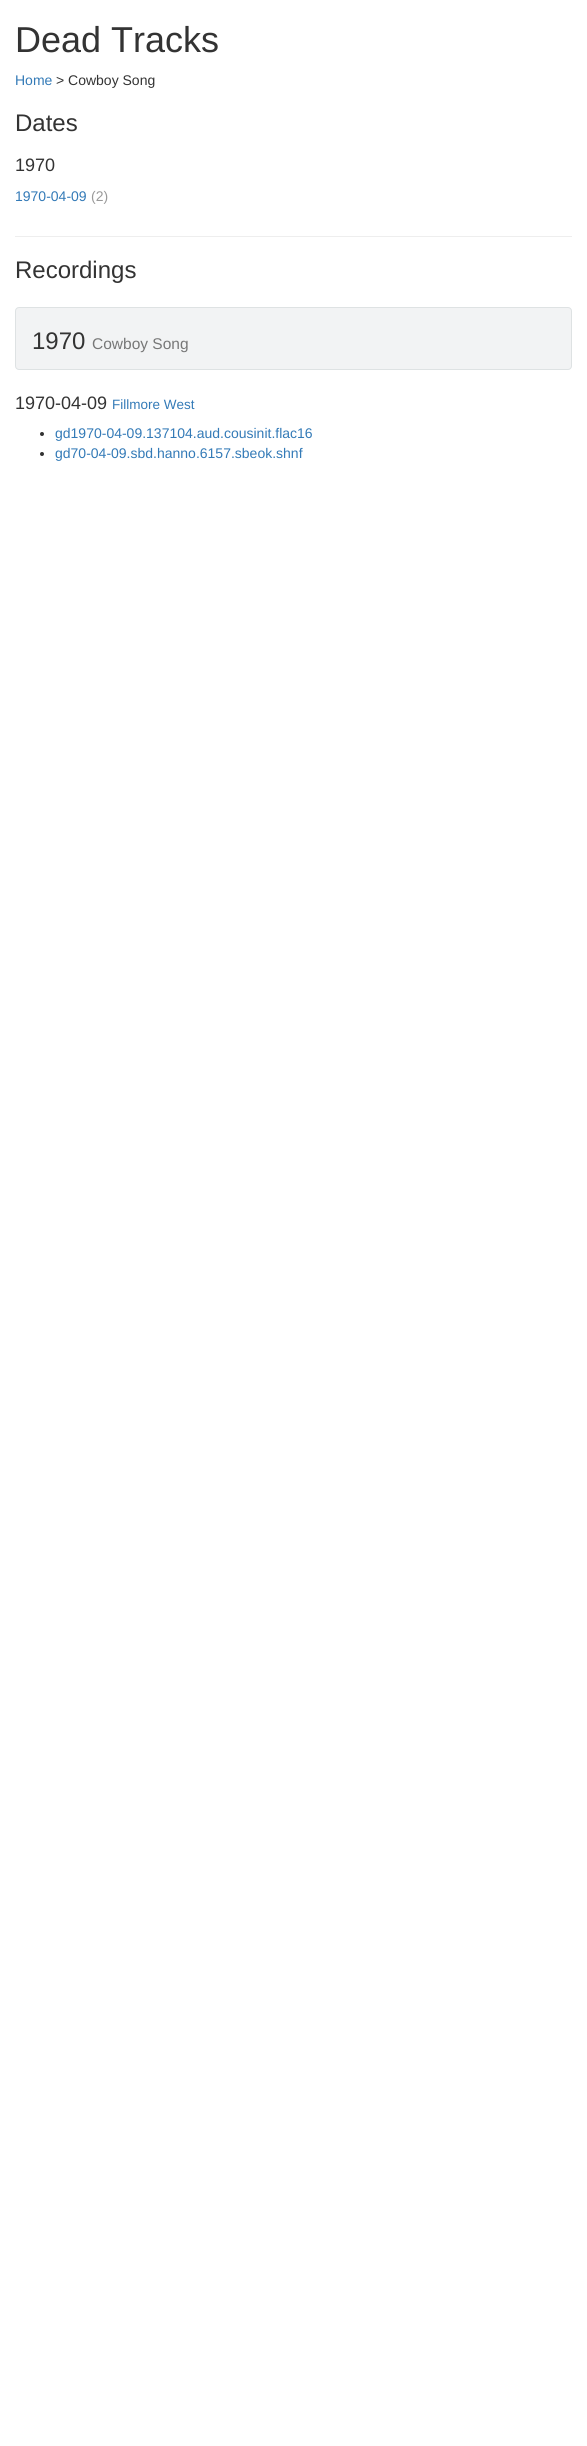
import math
import cairo

surface = cairo.ImageSurface(cairo.FORMAT_RGB24, 587, 2446)
c = cairo.Context(surface)
options = cairo.FontOptions()
options.set_hint_metrics(cairo.HINT_METRICS_OFF)
options.set_hint_style(cairo.HINT_STYLE_NONE)
c.set_font_options(options)
c.set_miter_limit(4)
def C(code):
 c.set_source_rgb(*(v / 255 for v in bytes.fromhex(code[-6:])))
def F(family, size, italic, bold):
 c.select_font_face(family, cairo.FONT_SLANT_ITALIC if italic else cairo.FONT_SLANT_NORMAL, cairo.FONT_WEIGHT_BOLD if bold else cairo.FONT_WEIGHT_NORMAL)
 c.set_font_size(size)
def T(x, y, s):
 c.move_to(x, y)
 c.show_text(s)
def R(x, y, w, h):
 c.rectangle(x, y, w, h)
 c.fill()
def Q(x, y, w, h, r):
 c.new_sub_path()
 for i, (u, v) in enumerate([(x + w - r, y + h - r), (x + r, y + h - r), (x + r, y + r), (x + w - r, y + r)]):
  c.arc(u, v, r, i * math.pi / 2, (i + 1) * math.pi / 2)
 c.close_path()
C('ffffff')
c.paint()
F('Liberation Sans',36,0,0)
C('333333')
T(15,52,'Dead Tracks')
F('Liberation Sans',14,0,0)
C('337ab7')
T(15,85,'Home')
C('333333')
T(56,85,'> Cowboy Song')
F('Liberation Sans',24,0,0)
T(15,131,'Dates')
F('Liberation Sans',18,0,0)
T(15,171,'1970')
F('Liberation Sans',14,0,0)
C('337ab7')
T(15,201,'1970-04-09')
C('999999')
T(91,201,'(2)')
C('eeeeee')
R(15,236,557,1)
F('Liberation Sans',24,0,0)
C('333333')
T(15,278,'Recordings')
C('f2f3f4')
Q(15.5,307.5,556,62,3.5)
c.fill_preserve()
C('dee2e3')
c.set_line_width(1)
c.stroke()
C('333333')
T(32,349,'1970')
F('Liberation Sans',15.5,0,0)
C('777777')
T(92,349,'Cowboy Song')
F('Liberation Sans',18,0,0)
C('333333')
T(15,409,'1970-04-09')
F('Liberation Sans',13.5,0,0)
C('337ab7')
T(112,409,'Fillmore West')
C('333333')
c.new_path()
c.arc(42,434,2,0,2 * math.pi)
c.fill()
F('Liberation Sans',14,0,0)
C('337ab7')
T(55,438,'gd1970-04-09.137104.aud.cousinit.flac16')
C('333333')
c.new_path()
c.arc(42,454,2,0,2 * math.pi)
c.fill()
C('337ab7')
T(55,458,'gd70-04-09.sbd.hanno.6157.sbeok.shnf')
surface.write_to_png('o.png')
